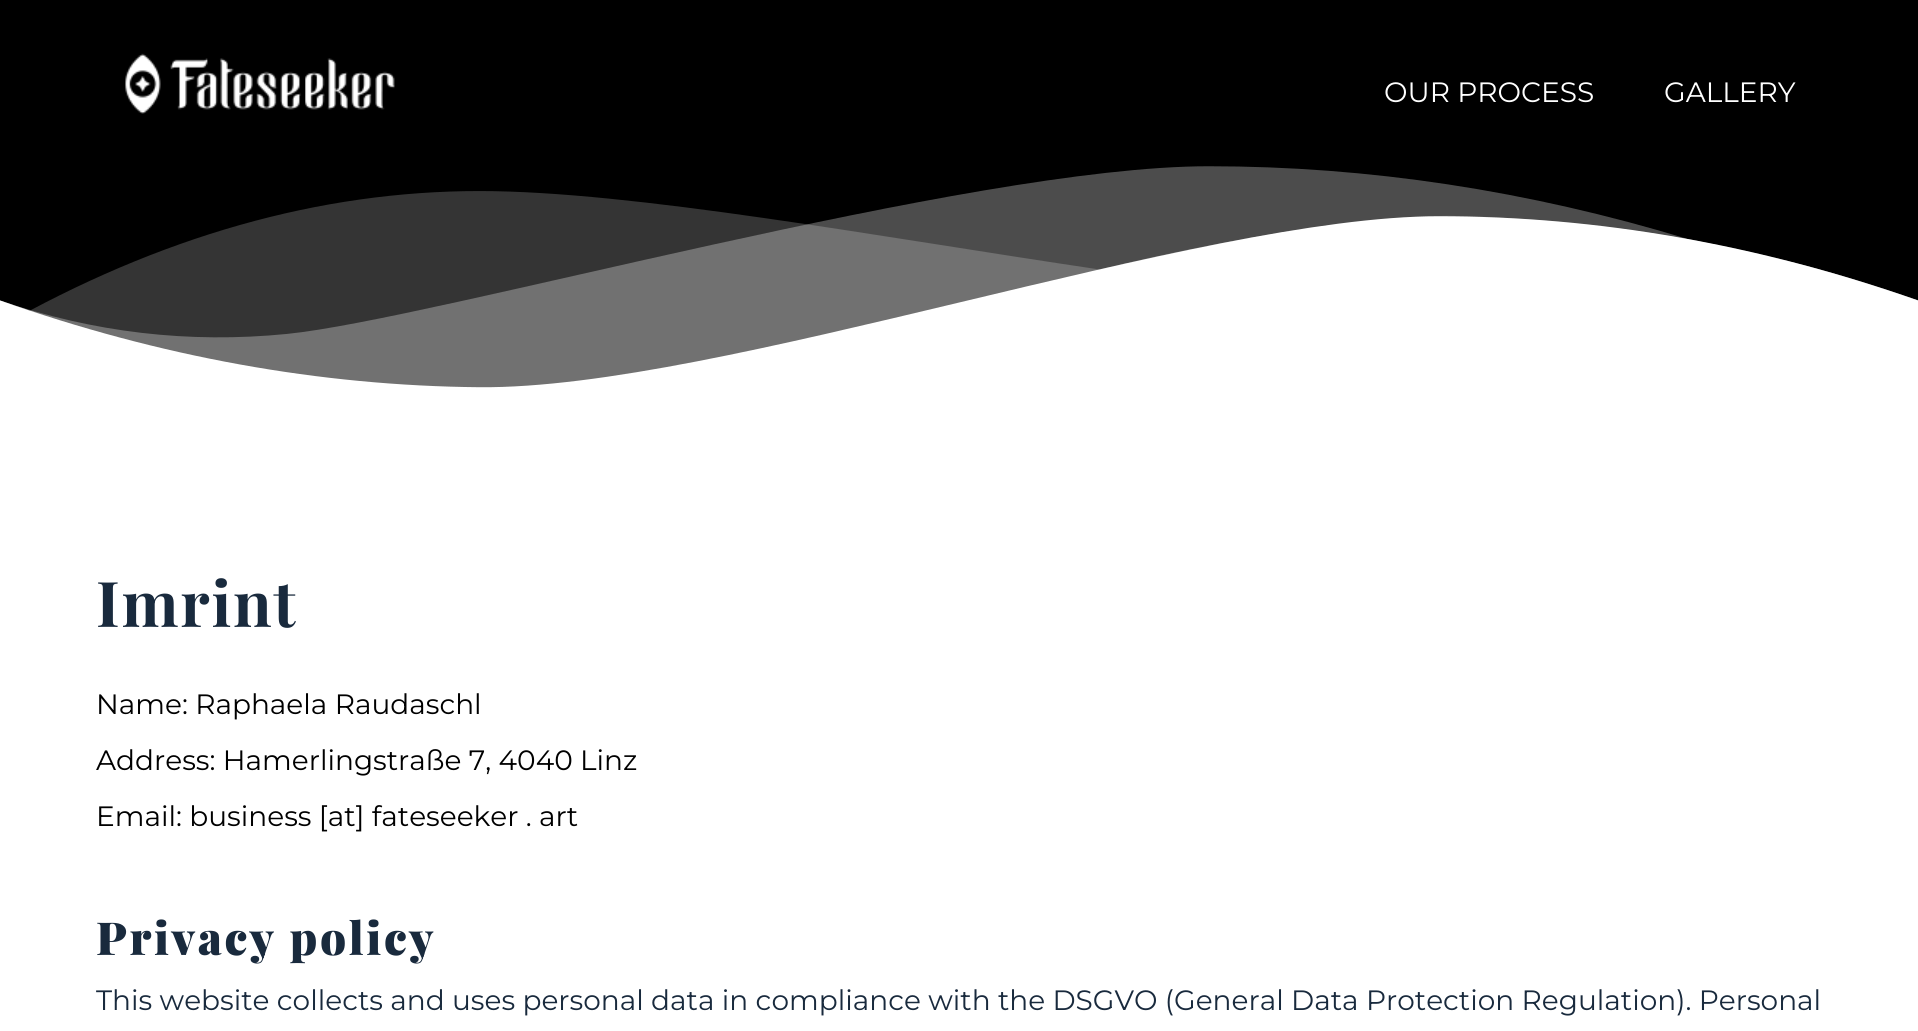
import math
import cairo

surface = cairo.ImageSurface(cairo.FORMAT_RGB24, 1918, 1031)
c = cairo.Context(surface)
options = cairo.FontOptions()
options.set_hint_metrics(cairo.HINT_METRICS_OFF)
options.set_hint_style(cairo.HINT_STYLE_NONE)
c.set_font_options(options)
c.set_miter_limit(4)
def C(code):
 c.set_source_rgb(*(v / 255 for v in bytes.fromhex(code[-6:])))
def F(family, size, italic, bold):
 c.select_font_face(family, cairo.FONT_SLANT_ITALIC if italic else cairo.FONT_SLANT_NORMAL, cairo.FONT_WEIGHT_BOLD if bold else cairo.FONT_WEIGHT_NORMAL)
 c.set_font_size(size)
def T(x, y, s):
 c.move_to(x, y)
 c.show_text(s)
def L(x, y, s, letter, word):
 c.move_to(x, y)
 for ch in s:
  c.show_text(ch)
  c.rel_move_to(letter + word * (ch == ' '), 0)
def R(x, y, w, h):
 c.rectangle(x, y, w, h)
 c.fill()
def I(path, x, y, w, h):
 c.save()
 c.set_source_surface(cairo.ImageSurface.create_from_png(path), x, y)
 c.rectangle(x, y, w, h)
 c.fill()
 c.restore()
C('000000')
c.paint()
I('1.png',125,53,270,61)
F('Montserrat Thin',28,0,0)
C('ffffff')
T(1384,102,'OUR PROCESS')
T(1664,102,'GALLERY')
I('2.png',0,166,1918,350)
R(0,516,1918,515)
F('Playfair Display',63,0,1)
C('192a3d')
L(96,627,'Imrint',1.75,0)
F('Montserrat Thin',28,0,0)
C('000000')
T(96,714,'Name: Raphaela Raudaschl')
T(96,770,'Address: Hamerlingstraße 7, 4040 Linz')
T(96,826,'Email: business [at] fateseeker . art')
F('Playfair Display Black',45.5,0,0)
C('192a3d')
L(96,955,'Privacy policy',2.6,0)
F('Montserrat Thin',28,0,0)
T(96,1010,'This website collects and uses personal data in compliance with the DSGVO (General Data Protection Regulation). Personal')
surface.write_to_png('o.png')
